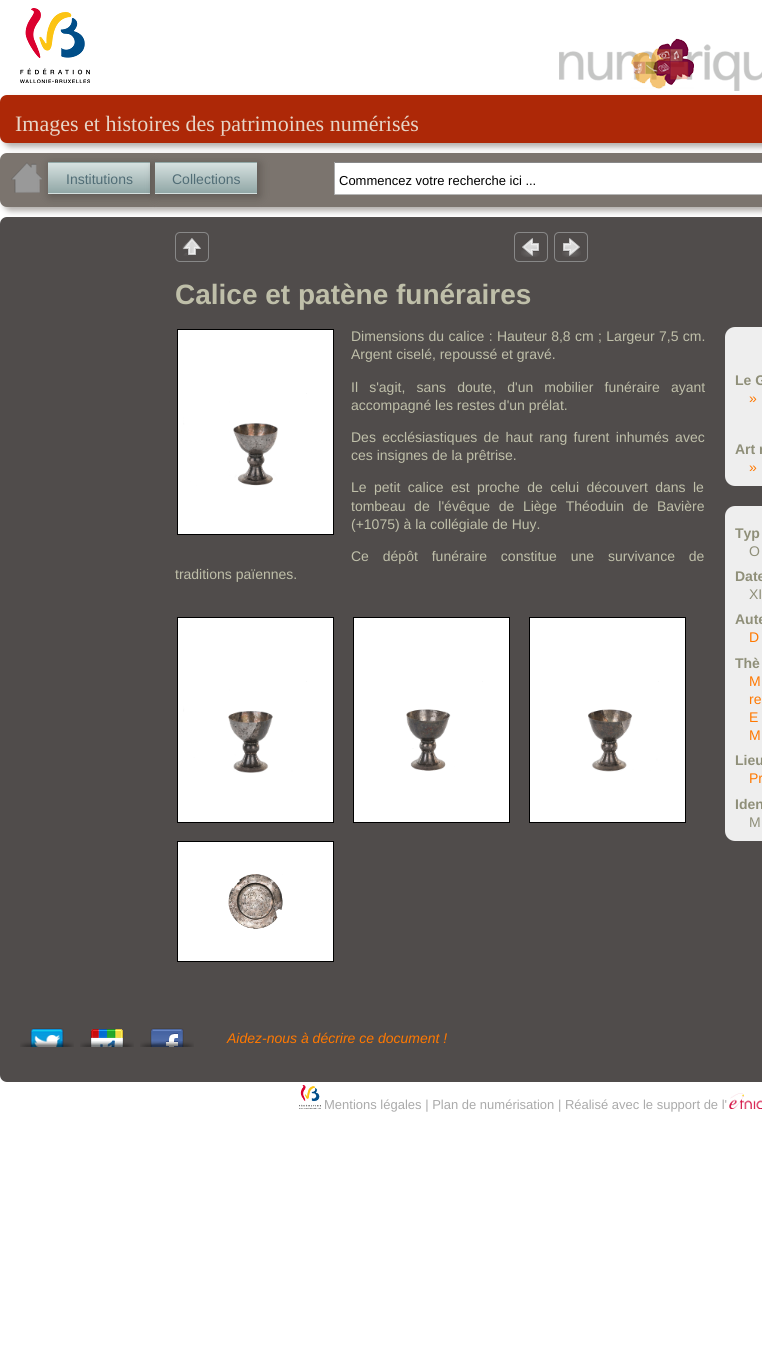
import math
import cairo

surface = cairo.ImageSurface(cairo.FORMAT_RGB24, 762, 1354)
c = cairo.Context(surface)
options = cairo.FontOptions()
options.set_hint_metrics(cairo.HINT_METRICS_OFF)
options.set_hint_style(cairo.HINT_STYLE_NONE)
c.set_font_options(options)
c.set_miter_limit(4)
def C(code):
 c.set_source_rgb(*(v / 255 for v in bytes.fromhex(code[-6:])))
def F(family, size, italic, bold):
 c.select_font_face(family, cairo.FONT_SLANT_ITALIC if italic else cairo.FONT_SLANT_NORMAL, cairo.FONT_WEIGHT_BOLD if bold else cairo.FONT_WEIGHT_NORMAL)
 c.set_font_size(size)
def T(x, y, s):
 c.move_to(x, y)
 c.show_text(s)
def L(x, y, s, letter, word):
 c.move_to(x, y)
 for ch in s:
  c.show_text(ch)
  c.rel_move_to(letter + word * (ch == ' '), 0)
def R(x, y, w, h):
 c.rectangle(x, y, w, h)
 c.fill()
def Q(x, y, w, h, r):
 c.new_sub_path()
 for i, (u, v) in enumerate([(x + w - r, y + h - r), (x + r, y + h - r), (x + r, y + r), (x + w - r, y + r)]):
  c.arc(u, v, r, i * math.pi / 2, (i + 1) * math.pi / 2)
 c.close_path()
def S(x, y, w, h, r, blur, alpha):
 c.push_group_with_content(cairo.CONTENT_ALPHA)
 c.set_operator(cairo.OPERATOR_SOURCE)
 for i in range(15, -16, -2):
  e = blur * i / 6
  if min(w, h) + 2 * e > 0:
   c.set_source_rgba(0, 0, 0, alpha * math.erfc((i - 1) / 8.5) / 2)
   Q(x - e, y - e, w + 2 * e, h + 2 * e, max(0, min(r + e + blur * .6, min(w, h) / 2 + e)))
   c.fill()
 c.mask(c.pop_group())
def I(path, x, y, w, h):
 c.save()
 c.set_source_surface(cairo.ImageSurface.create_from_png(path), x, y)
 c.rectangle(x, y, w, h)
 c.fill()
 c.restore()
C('ffffff')
c.paint()
I('1.png',559,44,203,47)
I('2.png',20,8,70,75)
I('3.png',631,38,63,51)
C('b2aeab')
S(4,99,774,48,7,3,1)
C('ad2807')
Q(0,95,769,48,7)
c.fill()
F('Liberation Serif',22,0,0)
C('e7d5c7')
T(15,131,'Images et histoires des patrimoines numérisés')
C('504c4b')
Q(0,217,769,865,7)
c.fill()
C('b2aeab')
S(4,157,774,54,7,3,1)
C('7b746e')
Q(0,153,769,54,7)
c.fill()
I('4.png',11,162,31,31)
C('59544f')
S(50,164,102,32,0,5,1)
gradient = cairo.LinearGradient(99,133,99,163)
gradient.add_color_stop_rgba(0,0.839,0.882,0.878,1)
gradient.add_color_stop_rgba(1,0.569,0.655,0.651,1)
c.set_source(gradient)
R(48,162,102,1)
gradient = cairo.LinearGradient(99,163,99,193)
gradient.add_color_stop_rgba(0,0.839,0.882,0.878,1)
gradient.add_color_stop_rgba(1,0.569,0.655,0.651,1)
c.set_source(gradient)
R(48,163,102,30)
gradient = cairo.LinearGradient(99,193,99,223)
gradient.add_color_stop_rgba(0,0.839,0.882,0.878,1)
gradient.add_color_stop_rgba(1,0.569,0.655,0.651,1)
c.set_source(gradient)
R(48,193,102,1)
F('Liberation Sans',14,0,0)
C('516d76')
T(66,184,'Institutions')
C('59544f')
S(157,164,102,32,0,5,1)
gradient = cairo.LinearGradient(206,133,206,163)
gradient.add_color_stop_rgba(0,0.839,0.882,0.878,1)
gradient.add_color_stop_rgba(1,0.569,0.655,0.651,1)
c.set_source(gradient)
R(155,162,102,1)
gradient = cairo.LinearGradient(206,163,206,193)
gradient.add_color_stop_rgba(0,0.839,0.882,0.878,1)
gradient.add_color_stop_rgba(1,0.569,0.655,0.651,1)
c.set_source(gradient)
R(155,163,102,30)
gradient = cairo.LinearGradient(206,193,206,223)
gradient.add_color_stop_rgba(0,0.839,0.882,0.878,1)
gradient.add_color_stop_rgba(1,0.569,0.655,0.651,1)
c.set_source(gradient)
R(155,193,102,1)
C('516d76')
T(172,184,'Collections')
C('ffffff')
R(335,163,427,31)
C('888888')
R(334,162,428,1)
C('b6b6b6')
R(334,194,428,1)
C('aaaaaa')
R(334,162,1,33)
F('Liberation Sans',13,0,0)
C('000000')
T(339,185,'Commencez votre recherche ici ...')
I('5.png',182,238,19,18)
Q(175.5,232.5,33,29,4.5)
C('888888')
c.set_line_width(1)
c.stroke()
I('6.png',521,238,19,19)
Q(514.5,232.5,33,29,4.5)
c.stroke()
I('7.png',562,238,19,19)
Q(554.5,232.5,33,29,4.5)
c.stroke()
F('Liberation Sans',28,0,1)
C('bfbfa9')
T(175,304,'Calice et patène funéraires')
C('ffffff')
c.rectangle(177.5,329.5,156,205)
c.fill_preserve()
C('000000')
c.stroke()
I('8.png',183,393,124,93)
F('Liberation Sans',14,0,0)
C('bfbfa9')
L(351,341,'Dimensions du calice : Hauteur 8,8 cm ; Largeur 7,5 cm.',0,.5)
T(351,359,'Argent ciselé, repoussé et gravé.')
L(351,392,'Il s\'agit, sans doute, d\'un mobilier funéraire ayant',0,7.25)
T(351,410,'accompagné les restes d\'un prélat.')
L(351,442,'Des ecclésiastiques de haut rang furent inhumés avec',0,2.5)
T(351,460,'ces insignes de la prêtrise.')
L(351,492,'Le petit calice est proche de celui découvert dans le',0,3.5)
L(351,511,'tombeau de l\'évêque de Liège Théoduin de Bavière',0,4.75)
T(351,529,'(+1075) à la collégiale de Huy.')
L(351,561,'Ce dépôt funéraire constitue une survivance de',0,10)
T(175,579,'traditions païennes.')
C('ffffff')
c.rectangle(177.5,617.5,156,205)
c.fill_preserve()
C('000000')
c.stroke()
I('9.png',183,681,124,92)
C('ffffff')
c.rectangle(353.5,617.5,156,205)
c.fill_preserve()
C('000000')
c.stroke()
I('10.png',406,681,77,90)
C('ffffff')
c.rectangle(529.5,617.5,156,205)
c.fill_preserve()
C('000000')
c.stroke()
I('11.png',588,681,71,91)
C('ffffff')
c.rectangle(177.5,841.5,156,120)
c.fill_preserve()
C('000000')
c.stroke()
I('12.png',228,874,55,55)
C('eeeeee')
Q(725,327,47,159,10)
c.fill()
F('Liberation Sans',14,0,1)
C('8f8f79')
T(735,385,'Le G')
F('Liberation Sans',14,0,0)
C('ff7800')
T(749,403,'»')
F('Liberation Sans',14,0,1)
C('8f8f79')
T(735,454,'Art r')
F('Liberation Sans',14,0,0)
C('ff7800')
T(749,472,'»')
C('eeeeee')
Q(725,506,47,335,10)
c.fill()
F('Liberation Sans',14,0,1)
C('8f8f79')
T(735,538,'Typ')
F('Liberation Sans',14,0,0)
T(749,556,'O')
F('Liberation Sans',14,0,1)
T(735,581,'Date')
F('Liberation Sans',14,0,0)
T(749,599,'XI')
F('Liberation Sans',14,0,1)
T(735,624,'Aute')
F('Liberation Sans',14,0,0)
C('ff7800')
T(749,642,'D')
F('Liberation Sans',14,0,1)
C('8f8f79')
T(735,668,'Thè')
F('Liberation Sans',14,0,0)
C('ff7800')
T(749,686,'M')
T(749,704,'re')
T(749,722,'E')
T(749,740,'M')
F('Liberation Sans',14,0,1)
C('8f8f79')
T(735,765,'Lieu')
F('Liberation Sans',14,0,0)
C('ff7800')
T(749,783,'Pr')
F('Liberation Sans',14,0,1)
C('8f8f79')
T(735,809,'Iden')
F('Liberation Sans',14,0,0)
T(749,827,'M')
I('13.png',20,1028,54,19)
I('14.png',80,1029,54,18)
I('15.png',140,1028,54,19)
F('Liberation Sans',14,1,0)
C('ff7800')
T(227,1043,'Aidez-nous à décrire ce document !')
I('16.png',299,1085,22,24)
F('Liberation Sans',13,0,0)
C('aaaaaa')
T(324,1109,'Mentions légales | Plan de numérisation | Réalisé avec le support de l\'')
I('17.png',729,1093,33,16)
surface.write_to_png('o.png')
